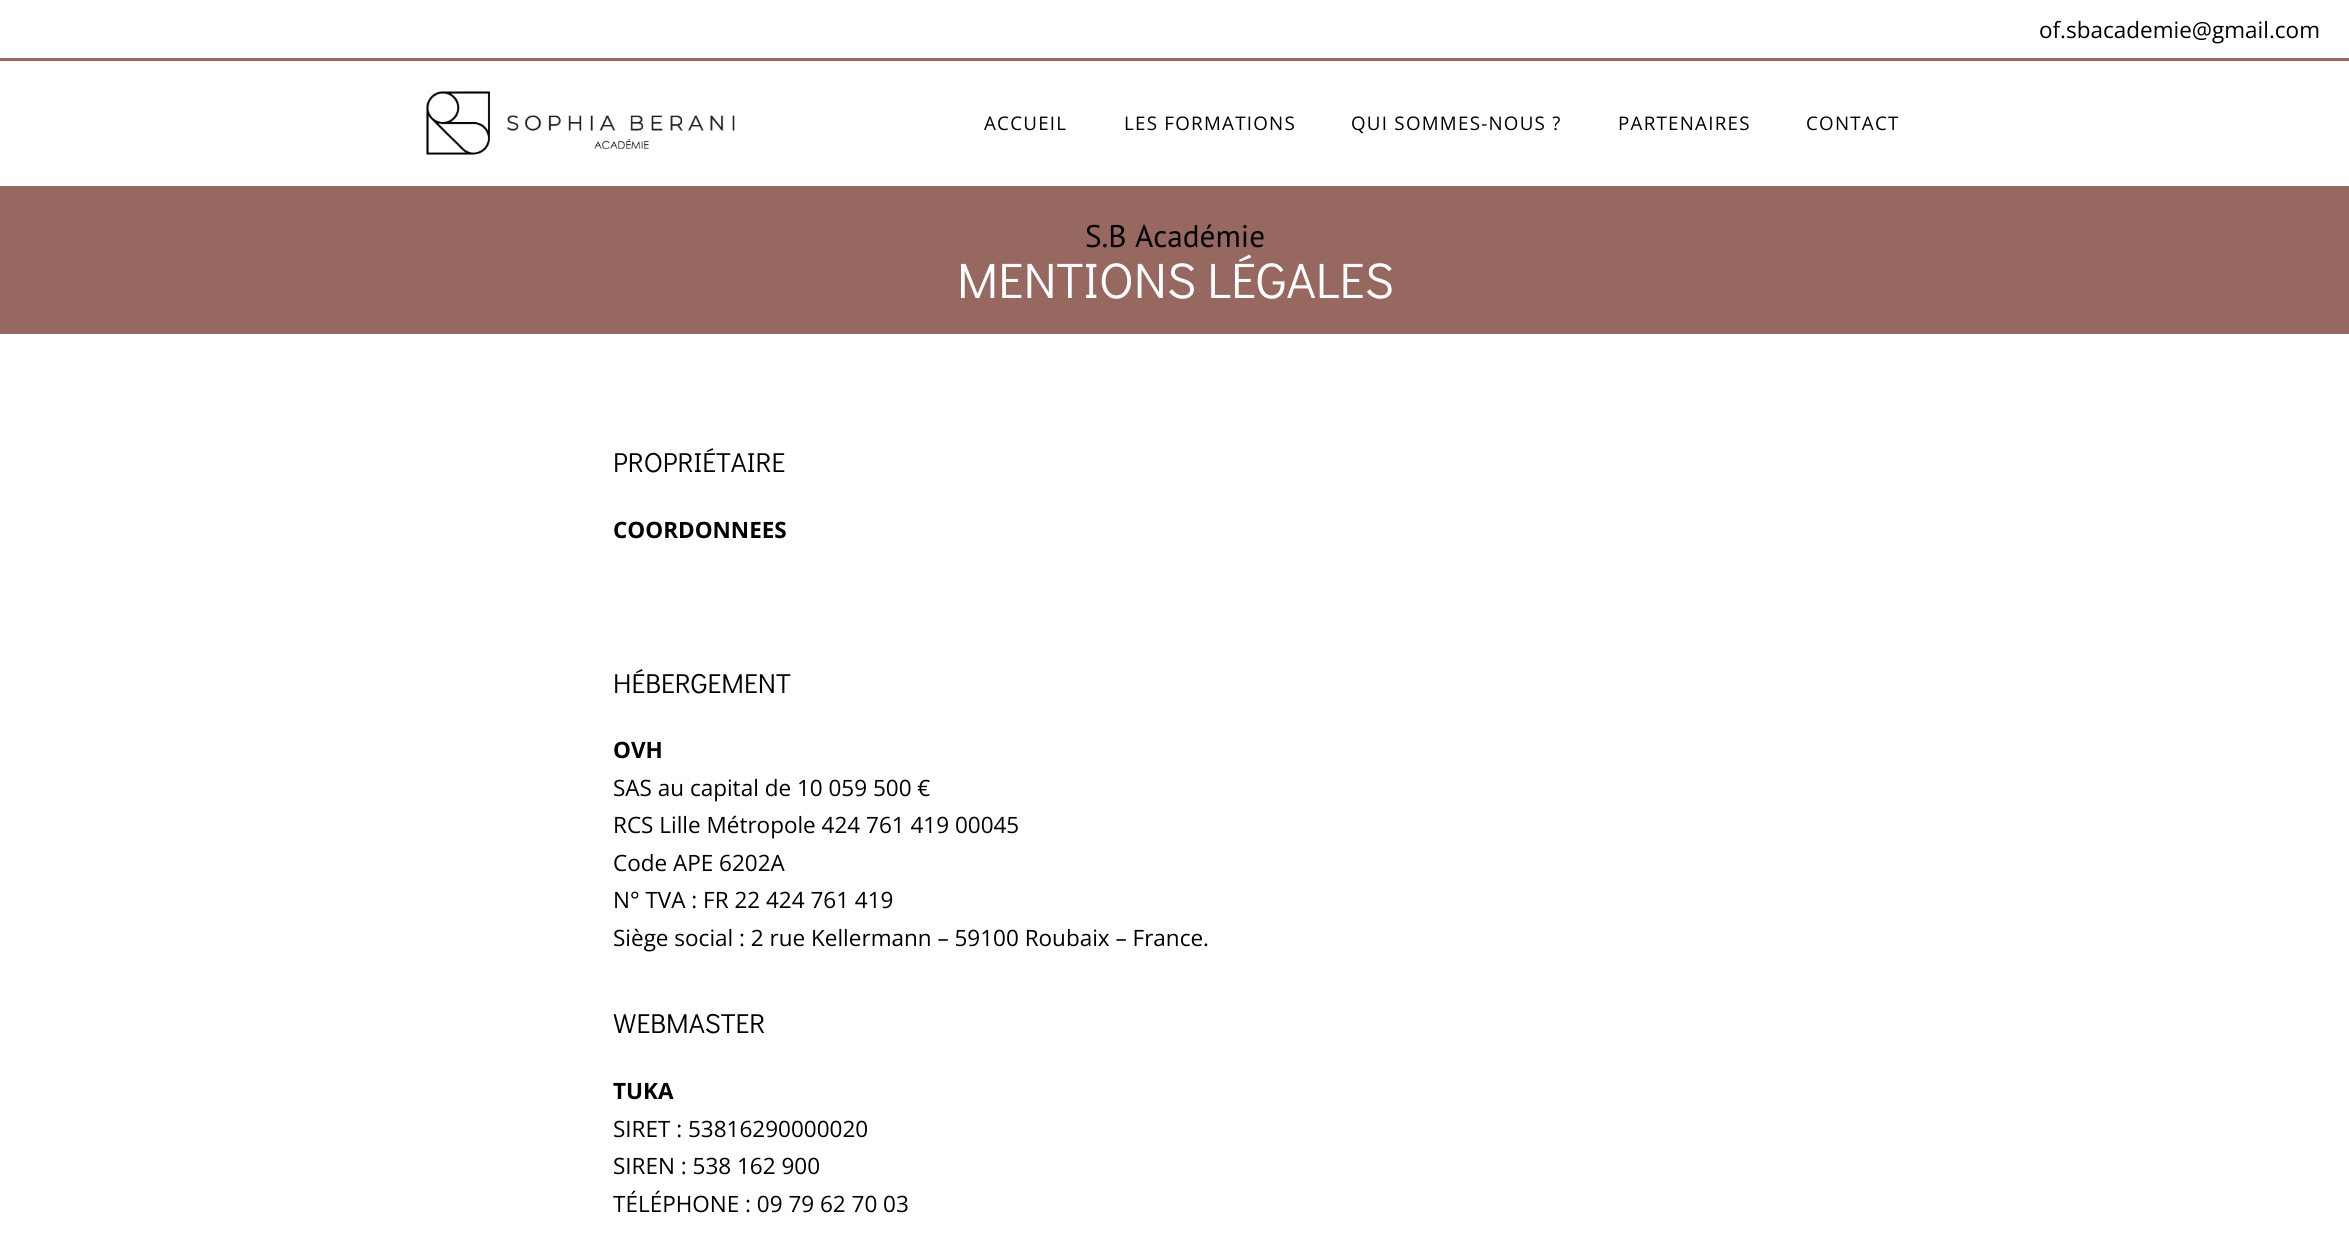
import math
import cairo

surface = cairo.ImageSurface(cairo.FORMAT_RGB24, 2349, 1237)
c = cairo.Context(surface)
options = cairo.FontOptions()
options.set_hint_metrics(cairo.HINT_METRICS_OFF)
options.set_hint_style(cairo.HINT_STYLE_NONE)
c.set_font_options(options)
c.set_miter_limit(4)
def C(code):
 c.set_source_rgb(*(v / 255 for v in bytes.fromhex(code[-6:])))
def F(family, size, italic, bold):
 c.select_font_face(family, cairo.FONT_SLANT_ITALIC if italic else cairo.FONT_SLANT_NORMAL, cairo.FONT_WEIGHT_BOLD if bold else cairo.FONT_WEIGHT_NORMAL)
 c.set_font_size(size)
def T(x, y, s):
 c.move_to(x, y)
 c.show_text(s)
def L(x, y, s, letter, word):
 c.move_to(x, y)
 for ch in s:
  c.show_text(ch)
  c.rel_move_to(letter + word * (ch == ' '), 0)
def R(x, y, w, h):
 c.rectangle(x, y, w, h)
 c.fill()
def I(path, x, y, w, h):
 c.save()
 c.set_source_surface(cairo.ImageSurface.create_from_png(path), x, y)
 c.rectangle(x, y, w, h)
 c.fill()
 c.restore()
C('ffffff')
c.paint()
C('966860')
R(0,58,2349,3)
F('Open Sans',22.5,0,0)
C('000000')
T(2039,38,'of.sbacademie@gmail.com')
I('1.png',426,91,309,64)
F('Open Sans',18.75,0,0)
L(984,130,'ACCUEIL',1.25,0)
L(1124,130,'LES FORMATIONS',1.25,0)
L(1351,130,'QUI SOMMES-NOUS ?',1.25,0)
L(1618,130,'PARTENAIRES',1.25,0)
L(1806,130,'CONTACT',1.25,0)
C('966860')
R(0,186,2349,148)
F('PT Sans',31.25,0,0)
C('000000')
T(1085,247,'S.B Académie')
F('Didact Gothic',50,0,0)
C('ffffff')
T(957,298,'MENTIONS LÉGALES')
F('Didact Gothic',27.5,0,0)
C('000000')
T(613,472,'PROPRIÉTAIRE')
F('Open Sans',22.5,0,1)
T(613,538,'COORDONNEES')
F('Didact Gothic',27.5,0,0)
T(613,693,'HÉBERGEMENT')
F('Open Sans',22.5,0,1)
T(613,758,'OVH')
F('Open Sans',22.5,0,0)
T(613,796,'SAS au capital de 10 059 500 €')
T(613,833,'RCS Lille Métropole 424 761 419 00045')
T(613,871,'Code APE 6202A')
T(613,908,'N° TVA : FR 22 424 761 419')
T(613,946,'Siège social : 2 rue Kellermann – 59100 Roubaix – France.')
F('Didact Gothic',27.5,0,0)
T(613,1033,'WEBMASTER')
F('Open Sans',22.5,0,1)
T(613,1099,'TUKA')
F('Open Sans',22.5,0,0)
T(613,1137,'SIRET : 53816290000020')
T(613,1174,'SIREN : 538 162 900')
T(613,1212,'TÉLÉPHONE : 09 79 62 70 03')
surface.write_to_png('o.png')
